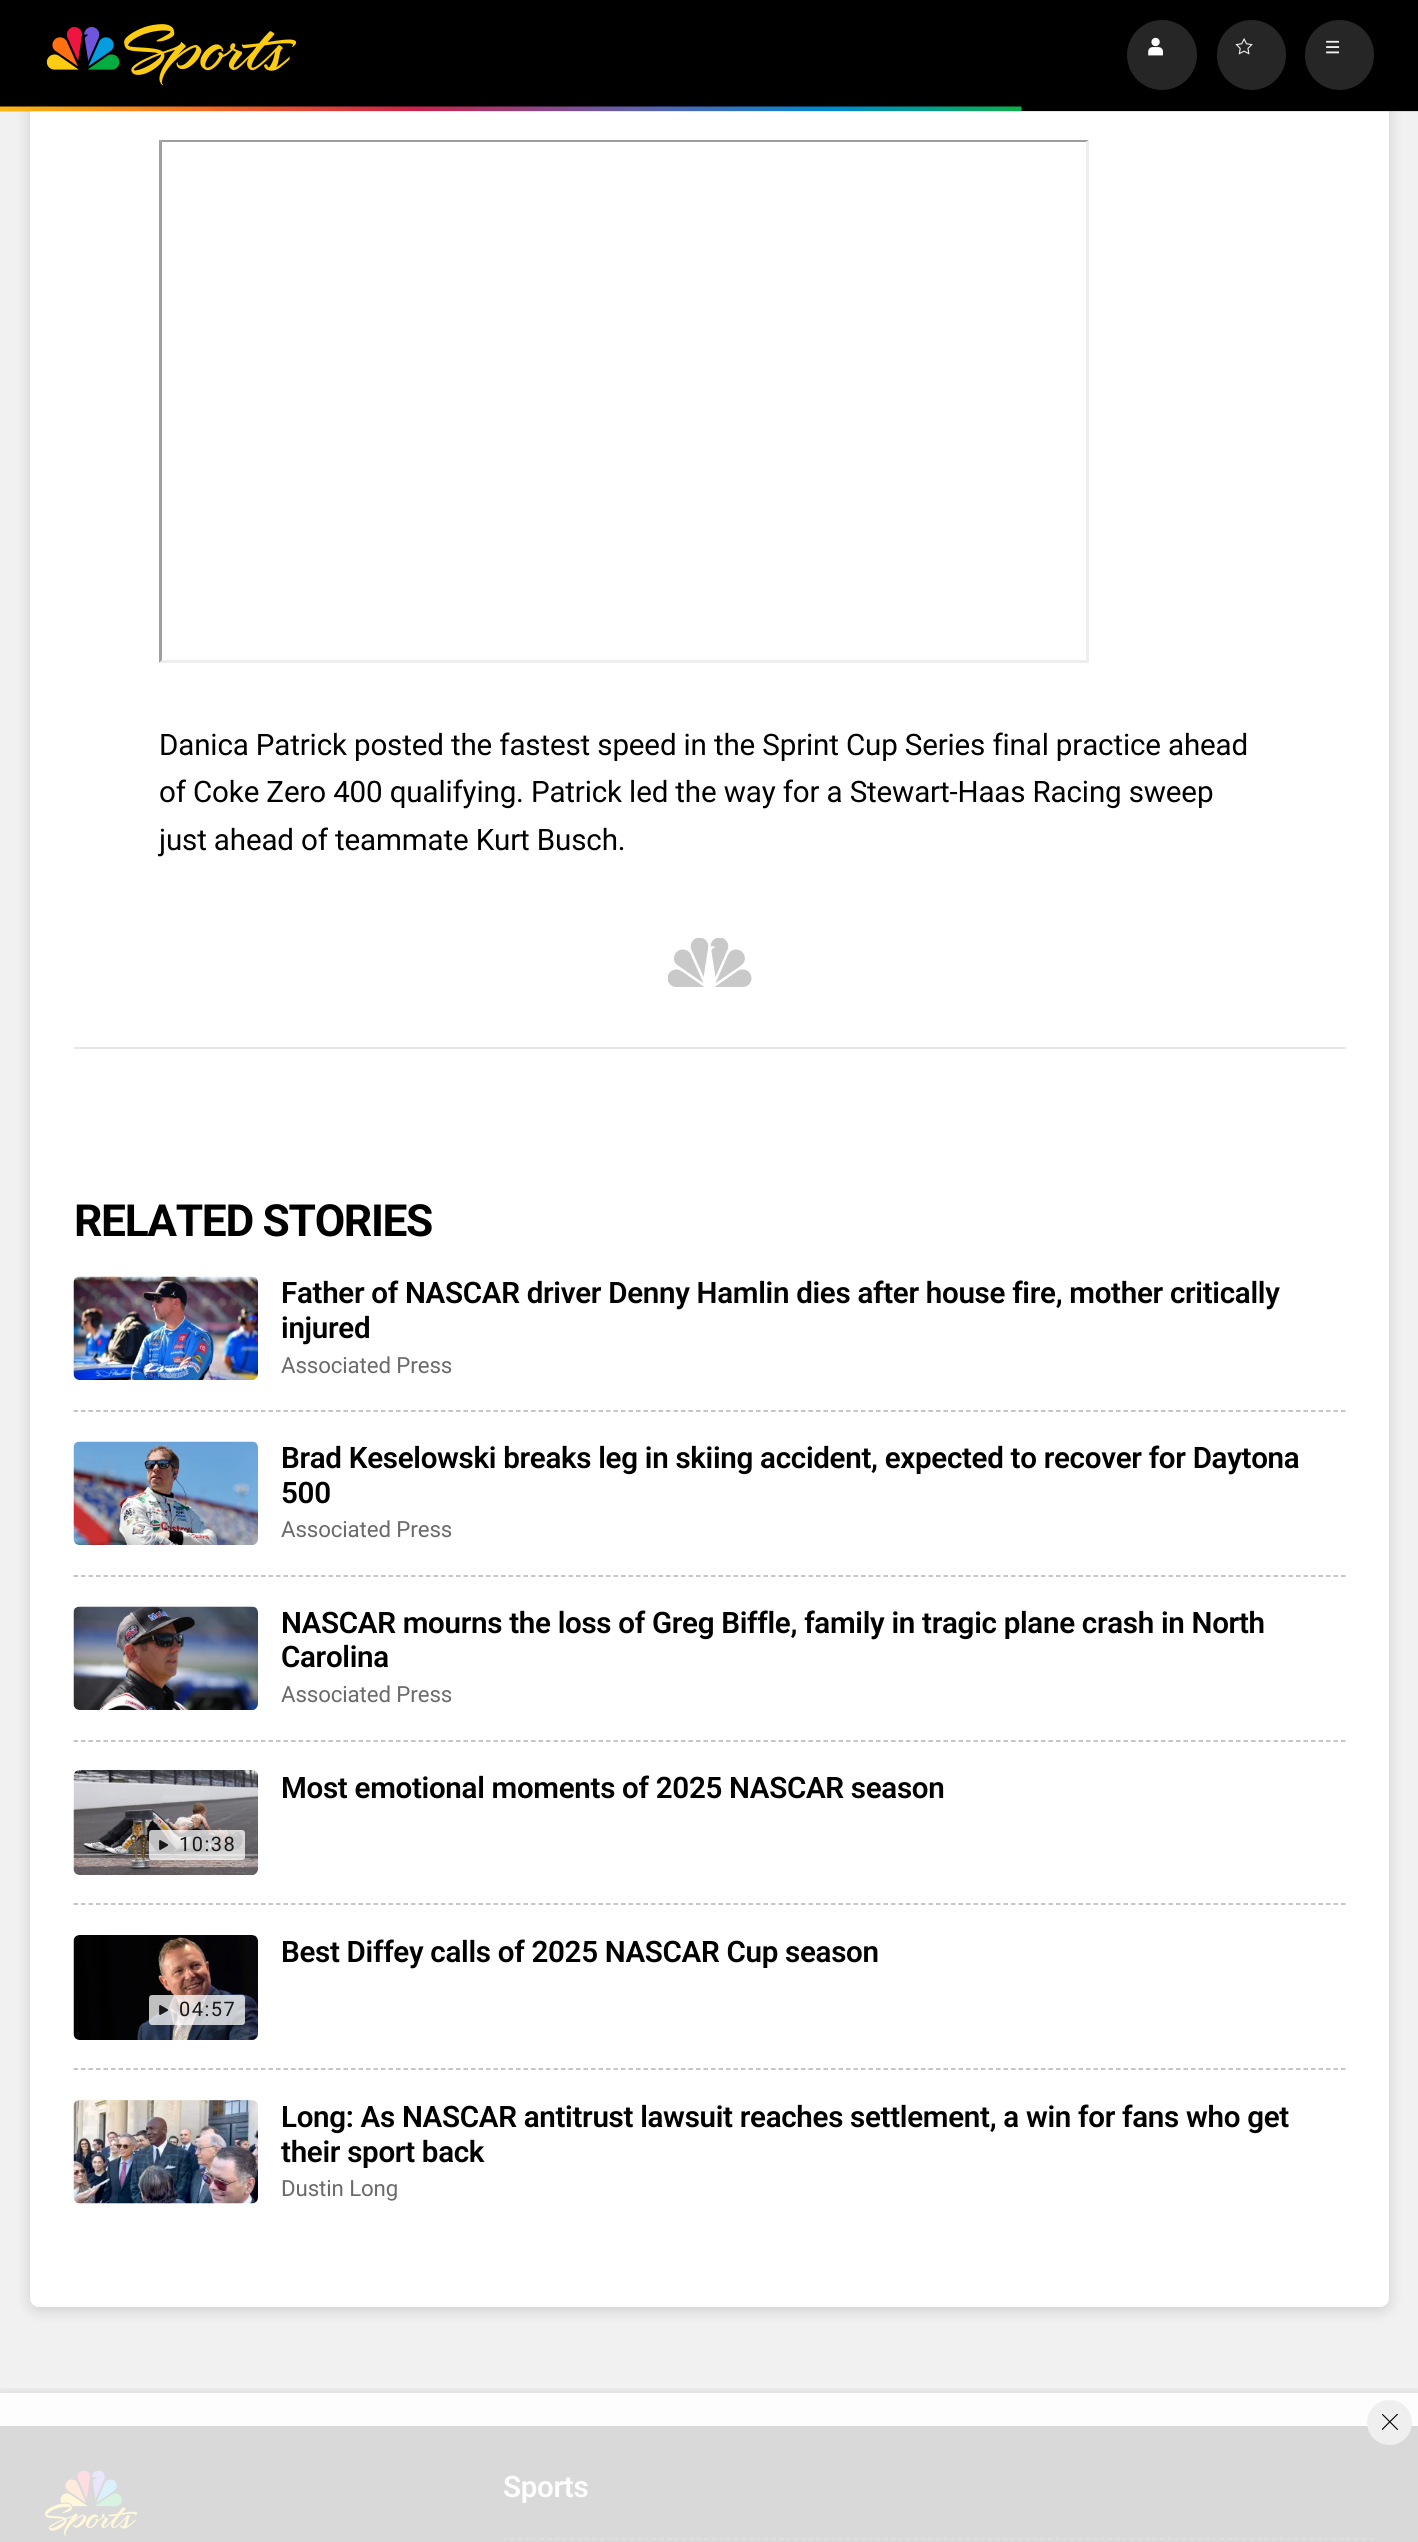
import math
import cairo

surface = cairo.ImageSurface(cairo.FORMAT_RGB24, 1418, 2542)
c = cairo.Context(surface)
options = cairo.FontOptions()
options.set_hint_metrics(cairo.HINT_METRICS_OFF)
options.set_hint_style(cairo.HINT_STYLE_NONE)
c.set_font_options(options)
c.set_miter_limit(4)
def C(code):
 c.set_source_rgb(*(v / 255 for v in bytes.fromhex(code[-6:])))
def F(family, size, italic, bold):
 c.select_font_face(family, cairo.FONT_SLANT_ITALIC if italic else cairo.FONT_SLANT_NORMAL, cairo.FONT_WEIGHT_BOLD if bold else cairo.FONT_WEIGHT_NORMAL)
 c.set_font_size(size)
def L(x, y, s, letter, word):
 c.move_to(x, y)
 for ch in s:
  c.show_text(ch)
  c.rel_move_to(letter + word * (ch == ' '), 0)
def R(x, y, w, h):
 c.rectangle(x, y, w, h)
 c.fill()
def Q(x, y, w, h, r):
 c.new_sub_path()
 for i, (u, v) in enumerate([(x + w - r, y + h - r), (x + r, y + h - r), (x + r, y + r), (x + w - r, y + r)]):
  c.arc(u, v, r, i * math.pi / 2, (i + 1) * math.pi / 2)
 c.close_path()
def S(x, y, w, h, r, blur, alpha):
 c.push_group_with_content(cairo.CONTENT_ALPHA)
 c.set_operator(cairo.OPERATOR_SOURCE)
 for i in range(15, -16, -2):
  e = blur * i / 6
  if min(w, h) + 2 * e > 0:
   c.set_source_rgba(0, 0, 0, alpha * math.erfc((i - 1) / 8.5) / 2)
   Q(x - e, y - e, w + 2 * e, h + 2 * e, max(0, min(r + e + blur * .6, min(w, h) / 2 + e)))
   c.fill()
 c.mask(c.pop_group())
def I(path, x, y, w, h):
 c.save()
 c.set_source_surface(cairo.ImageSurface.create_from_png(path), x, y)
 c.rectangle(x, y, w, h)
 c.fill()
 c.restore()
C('f1f1f1')
c.paint()
C('fdfdfd')
R(0,2393,1418,33)
C('000000')
S(30,-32,1359,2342,9,7.5,.15)
C('ffffff')
Q(30,-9,1359,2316,9)
c.fill()
C('000000')
R(0,0,1418,111)
c.set_source_rgba(0,0,0,0.1)
R(0,111,1418,1)
I('1.png',46,24,250,61)
C('262626')
c.arc(1162,55,35,0,2 * math.pi)
c.fill()
I('2.png',1148,37,15,19)
Q(1217,20,69,70,34.5)
c.fill()
I('3.png',1235,38,18,17)
Q(1305,20,69,70,34.5)
c.fill()
I('4.png',1326,40,14,14)
I('5.png',0,106,1022,5)
C('e6e6e6')
R(74,1047,1272,2)
C('9f9f9f')
c.new_path()
c.move_to(159,140)
c.line_to(1089,140)
c.line_to(1086,142)
c.line_to(162,142)
c.close_path()
c.fill()
C('eeeeee')
c.new_path()
c.move_to(1089,140)
c.line_to(1089,663)
c.line_to(1086,660)
c.line_to(1086,142)
c.close_path()
c.fill()
c.new_path()
c.move_to(1089,663)
c.line_to(159,663)
c.line_to(162,660)
c.line_to(1086,660)
c.close_path()
c.fill()
C('9f9f9f')
c.new_path()
c.move_to(159,663)
c.line_to(159,140)
c.line_to(162,142)
c.line_to(162,660)
c.close_path()
c.fill()
F('Roboto',29.55,0,0)
C('000000')
L(159,755,'Danica Patrick posted the fastest speed in the Sprint Cup Series final practice ahead',-.15,0)
L(159,802,'of Coke Zero 400 qualifying. Patrick led the way for a Stewart-Haas Racing sweep',-.15,0)
L(159,850,'just ahead of teammate Kurt Busch.',-.15,0)
I('6.png',668,938,84,49)
F('Roboto',44.25,0,1)
L(74,1236,'RELATED STORIES',-1.3,0)
I('7.png',73,1276,185,104)
F('Roboto SemiBold',29.55,0,0)
L(281,1303,'Father of NASCAR driver Denny Hamlin dies after house fire, mother critically',-.3,0)
L(281,1338,'injured',-.3,0)
F('Roboto',22.25,0,0)
C('6a6a6a')
L(281,1373,'Associated Press',-.1,0)
c.new_path()
c.move_to(73.5,1411)
c.line_to(1345.5,1411)
C('b3b3b3')
c.set_line_width(1.5)
c.set_dash([4.5,3])
c.stroke()
I('8.png',73,1441,185,104)
F('Roboto SemiBold',29.55,0,0)
C('000000')
L(281,1468,'Brad Keselowski breaks leg in skiing accident, expected to recover for Daytona',-.3,0)
L(281,1503,'500',-.3,0)
F('Roboto',22.25,0,0)
C('6a6a6a')
L(281,1537,'Associated Press',-.1,0)
c.new_path()
c.move_to(73.5,1576)
c.line_to(1345.5,1576)
C('b3b3b3')
c.stroke()
I('9.png',73,1606,185,104)
F('Roboto SemiBold',29.55,0,0)
C('000000')
L(281,1633,'NASCAR mourns the loss of Greg Biffle, family in tragic plane crash in North',-.3,0)
L(281,1667,'Carolina',-.3,0)
F('Roboto',22.25,0,0)
C('6a6a6a')
L(281,1702,'Associated Press',-.1,0)
c.new_path()
c.move_to(73.5,1741)
c.line_to(1345.5,1741)
C('b3b3b3')
c.stroke()
F('Roboto SemiBold',29.55,0,0)
C('000000')
L(281,1798,'Most emotional moments of 2025 NASCAR season',-.3,0)
I('10.png',73,1770,185,105)
c.set_source_rgba(1,1,1,0.75)
Q(149,1830,96,30,3)
c.fill()
I('11.png',159,1840,10,10)
F('Roboto',20,0,0)
C('181818')
L(179,1851,'10:38',1.5,0)
c.new_path()
c.move_to(73.5,1904)
c.line_to(1345.5,1904)
C('b3b3b3')
c.stroke()
F('Roboto SemiBold',29.55,0,0)
C('000000')
L(281,1962,'Best Diffey calls of 2025 NASCAR Cup season',-.3,0)
I('12.png',73,1935,185,105)
c.set_source_rgba(1,1,1,0.75)
Q(149,1995,96,30,3)
c.fill()
I('13.png',159,2005,10,10)
F('Roboto',20,0,0)
C('181818')
L(179,2016,'04:57',1.5,0)
c.new_path()
c.move_to(73.5,2069)
c.line_to(1345.5,2069)
C('b3b3b3')
c.stroke()
I('14.png',73,2100,185,104)
F('Roboto SemiBold',29.55,0,0)
C('000000')
L(281,2127,'Long: As NASCAR antitrust lawsuit reaches settlement, a win for fans who get',-.3,0)
L(281,2162,'their sport back',-.3,0)
F('Roboto',22.25,0,0)
C('6a6a6a')
L(281,2196,'Dustin Long',-.1,0)
C('d9d9d9')
R(0,2426,1418,116)
I('16.png',45,2471,92,66)
c.new_path()
c.move_to(502.5,2539)
c.line_to(1374,2539)
C('e0e0e0')
c.set_dash([4.5,2.97])
c.stroke()
c.save()
c.rectangle(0,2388,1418,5)
c.clip()
C('000000')
S(0,2390,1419,150,0,3,.08)
c.restore()
C('efefef')
c.arc(1389.5,2422.5,22.5,0,2 * math.pi)
c.fill()
I('15.png',1382,2414,16,16)
F('Roboto SemiBold',29.55,0,0)
C('fdfdfd')
L(503,2497,'Sports',-.3,0)
surface.write_to_png('o.png')
